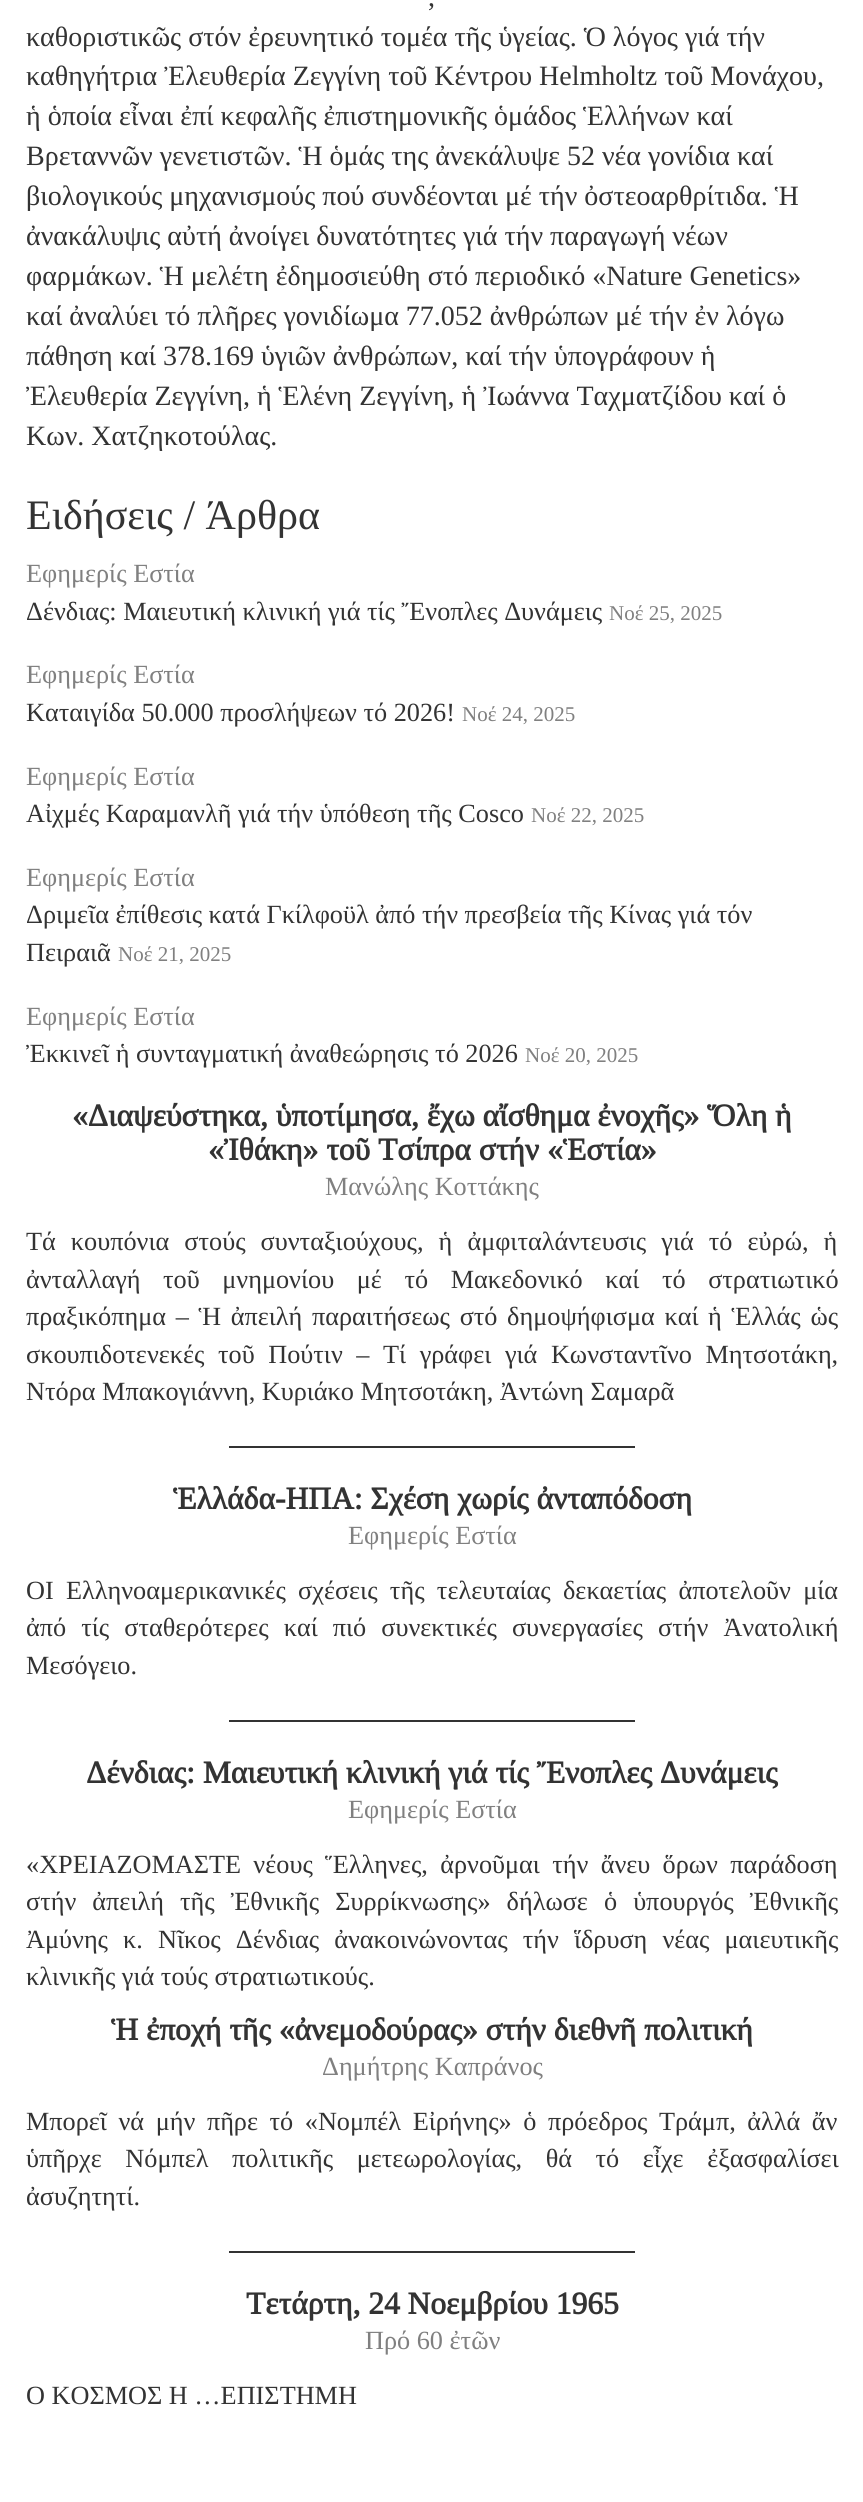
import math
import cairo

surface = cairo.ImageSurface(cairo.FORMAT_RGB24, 863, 2502)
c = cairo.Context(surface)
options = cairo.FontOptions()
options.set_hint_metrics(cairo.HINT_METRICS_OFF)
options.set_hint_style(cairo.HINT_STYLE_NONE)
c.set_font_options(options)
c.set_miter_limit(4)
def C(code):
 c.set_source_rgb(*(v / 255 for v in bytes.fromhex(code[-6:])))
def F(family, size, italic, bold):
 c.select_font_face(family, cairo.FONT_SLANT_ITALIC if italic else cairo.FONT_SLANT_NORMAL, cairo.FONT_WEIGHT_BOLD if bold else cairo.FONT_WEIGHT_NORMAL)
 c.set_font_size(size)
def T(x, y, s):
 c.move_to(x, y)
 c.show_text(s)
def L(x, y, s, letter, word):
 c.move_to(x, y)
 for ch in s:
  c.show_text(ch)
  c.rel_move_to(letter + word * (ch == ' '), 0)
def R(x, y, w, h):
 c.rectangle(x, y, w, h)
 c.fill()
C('ffffff')
c.paint()
F('Tinos',28,0,0)
C('333333')
T(428,6,',')
T(26,46,'καθοριστικῶς στόν ἐρευνητικό τομέα τῆς ὑγείας. Ὁ λόγος γιά τήν')
T(26,85,'καθηγήτρια Ἐλευθερία Ζεγγίνη τοῦ Κέντρου Helmholtz τοῦ Μονάχου,')
T(26,125,'ἡ ὁποία εἶναι ἐπί κεφαλῆς ἐπιστημονικῆς ὁμάδος Ἑλλήνων καί')
T(26,165,'Βρεταννῶν γενετιστῶν. Ἡ ὁμάς της ἀνεκάλυψε 52 νέα γονίδια καί')
T(26,205,'βιολογικούς μηχανισμούς πού συνδέονται μέ τήν ὀστεοαρθρίτιδα. Ἡ')
T(26,245,'ἀνακάλυψις αὐτή ἀνοίγει δυνατότητες γιά τήν παραγωγή νέων')
T(26,285,'φαρμάκων. Ἡ μελέτη ἐδημοσιεύθη στό περιοδικό «Nature Genetics»')
T(26,325,'καί ἀναλύει τό πλῆρες γονιδίωμα 77.052 ἀνθρώπων μέ τήν ἐν λόγω')
T(26,365,'πάθηση καί 378.169 ὑγιῶν ἀνθρώπων, καί τήν ὑπογράφουν ἡ')
T(26,405,'Ἐλευθερία Ζεγγίνη, ἡ Ἑλένη Ζεγγίνη, ἡ Ἰωάννα Ταχματζίδου καί ὁ')
T(26,445,'Κων. Χατζηκοτούλας.')
F('Tinos',42,0,0)
T(26,529,'Ειδήσεις / Άρθρα')
F('Tinos',26.25,0,0)
C('808080')
T(26,582,'Εφημερίς Εστία')
C('333333')
T(26,620,'Δένδιας: Μαιευτική κλινική γιά τίς Ἔνοπλες Δυνάμεις')
F('Tinos',21,0,0)
C('808080')
T(609,620,'Νοέ 25, 2025')
F('Tinos',26.25,0,0)
T(26,683,'Εφημερίς Εστία')
C('333333')
T(26,721,'Καταιγίδα 50.000 προσλήψεων τό 2026!')
F('Tinos',21,0,0)
C('808080')
T(462,721,'Νοέ 24, 2025')
F('Tinos',26.25,0,0)
T(26,785,'Εφημερίς Εστία')
C('333333')
T(26,822,'Aἰχμές Καραμανλῆ γιά τήν ὑπόθεση τῆς Cosco')
F('Tinos',21,0,0)
C('808080')
T(531,822,'Νοέ 22, 2025')
F('Tinos',26.25,0,0)
T(26,886,'Εφημερίς Εστία')
C('333333')
T(26,923,'Δριμεῖα ἐπίθεσις κατά Γκίλφοϋλ ἀπό τήν πρεσβεία τῆς Κίνας γιά τόν')
T(26,961,'Πειραιᾶ')
F('Tinos',21,0,0)
C('808080')
T(118,961,'Νοέ 21, 2025')
F('Tinos',26.25,0,0)
T(26,1025,'Εφημερίς Εστία')
C('333333')
T(26,1062,'Ἐκκινεῖ ἡ συνταγματική ἀναθεώρησις τό 2026')
F('Tinos',21,0,0)
C('808080')
T(525,1062,'Νοέ 20, 2025')
F('Tinos',31.5,0,1)
C('333333')
T(72,1126,'«Διαψεύστηκα, ὑποτίμησα, ἔχω αἴσθημα ἐνοχῆς» Ὅλη ἡ')
T(208,1160,'«Ἰθάκη» τοῦ Τσίπρα στήν «Ἑστία»')
F('Tinos',26.25,0,0)
C('808080')
T(325,1195,'Μανώλης Κοττάκης')
C('333333')
L(26,1250,'Τά κουπόνια στούς συνταξιούχους, ἡ ἀμφιταλάντευσις γιά τό εὐρώ, ἡ',0,8.5)
L(26,1288,'ἀνταλλαγή τοῦ μνημονίου μέ τό Μακεδονικό καί τό στρατιωτικό',0,16)
L(26,1325,'πραξικόπημα – Ἡ ἀπειλή παραιτήσεως στό δημοψήφισμα καί ἡ Ἑλλάς ὡς',0,3.1)
L(26,1363,'σκουπιδοτενεκές τοῦ Πούτιν – Τί γράφει γιά Κωνσταντῖνο Μητσοτάκη,',0,7)
T(26,1400,'Ντόρα Μπακογιάννη, Κυριάκο Μητσοτάκη, Ἀντώνη Σαμαρᾶ')
R(229,1446,406,2)
F('Tinos',31.5,0,1)
T(173,1509,'Ἑλλάδα-ΗΠΑ: Σχέση χωρίς ἀνταπόδοση')
F('Tinos',26.25,0,0)
C('808080')
T(348,1544,'Εφημερίς Εστία')
C('333333')
L(26,1599,'ΟΙ Ελληνοαμερικανικές σχέσεις τῆς τελευταίας δεκαετίας ἀποτελοῦν μία',0,5.75)
L(26,1636,'ἀπό τίς σταθερότερες καί πιό συνεκτικές συνεργασίες στήν Ἀνατολική',0,8.5)
T(26,1674,'Μεσόγειο.')
R(229,1720,406,2)
F('Tinos',31.5,0,1)
T(86,1783,'Δένδιας: Μαιευτική κλινική γιά τίς Ἔνοπλες Δυνάμεις')
F('Tinos',26.25,0,0)
C('808080')
T(348,1818,'Εφημερίς Εστία')
C('333333')
L(26,1873,'«ΧΡΕΙΑΖΟΜΑΣΤΕ νέους Ἕλληνες, ἀρνοῦμαι τήν ἄνευ ὅρων παράδοση',0,5.75)
L(26,1910,'στήν ἀπειλή τῆς Ἐθνικῆς Συρρίκνωσης» δήλωσε ὁ ὑπουργός Ἐθνικῆς',0,9.5)
L(26,1948,'Ἀμύνης κ. Νῖκος Δένδιας ἀνακοινώνοντας τήν ἵδρυση νέας μαιευτικῆς',0,8.5)
T(26,1985,'κλινικῆς γιά τούς στρατιωτικούς.')
F('Tinos',31.5,0,1)
T(111,2040,'Ἡ ἐποχή τῆς «ἀνεμοδούρας» στήν διεθνῆ πολιτική')
F('Tinos',26.25,0,0)
C('808080')
T(322,2075,'Δημήτρης Καπράνος')
C('333333')
L(26,2130,'Μπορεῖ νά μήν πῆρε τό «Νομπέλ Εἰρήνης» ὁ πρόεδρος Τράμπ, ἀλλά ἄν',0,5)
L(26,2167,'ὑπῆρχε Νόμπελ πολιτικῆς μετεωρολογίας, θά τό εἶχε ἐξασφαλίσει',0,17)
T(26,2205,'ἀσυζητητί.')
R(229,2251,406,2)
F('Tinos',31.5,0,1)
T(246,2314,'Τετάρτη, 24 Νοεμβρίου 1965')
F('Tinos',26.25,0,0)
C('808080')
T(365,2349,'Πρό 60 ἐτῶν')
C('333333')
T(26,2404,'O ΚΟΣΜΟΣ Η …ΕΠΙΣΤΗΜΗ')
surface.write_to_png('o.png')
